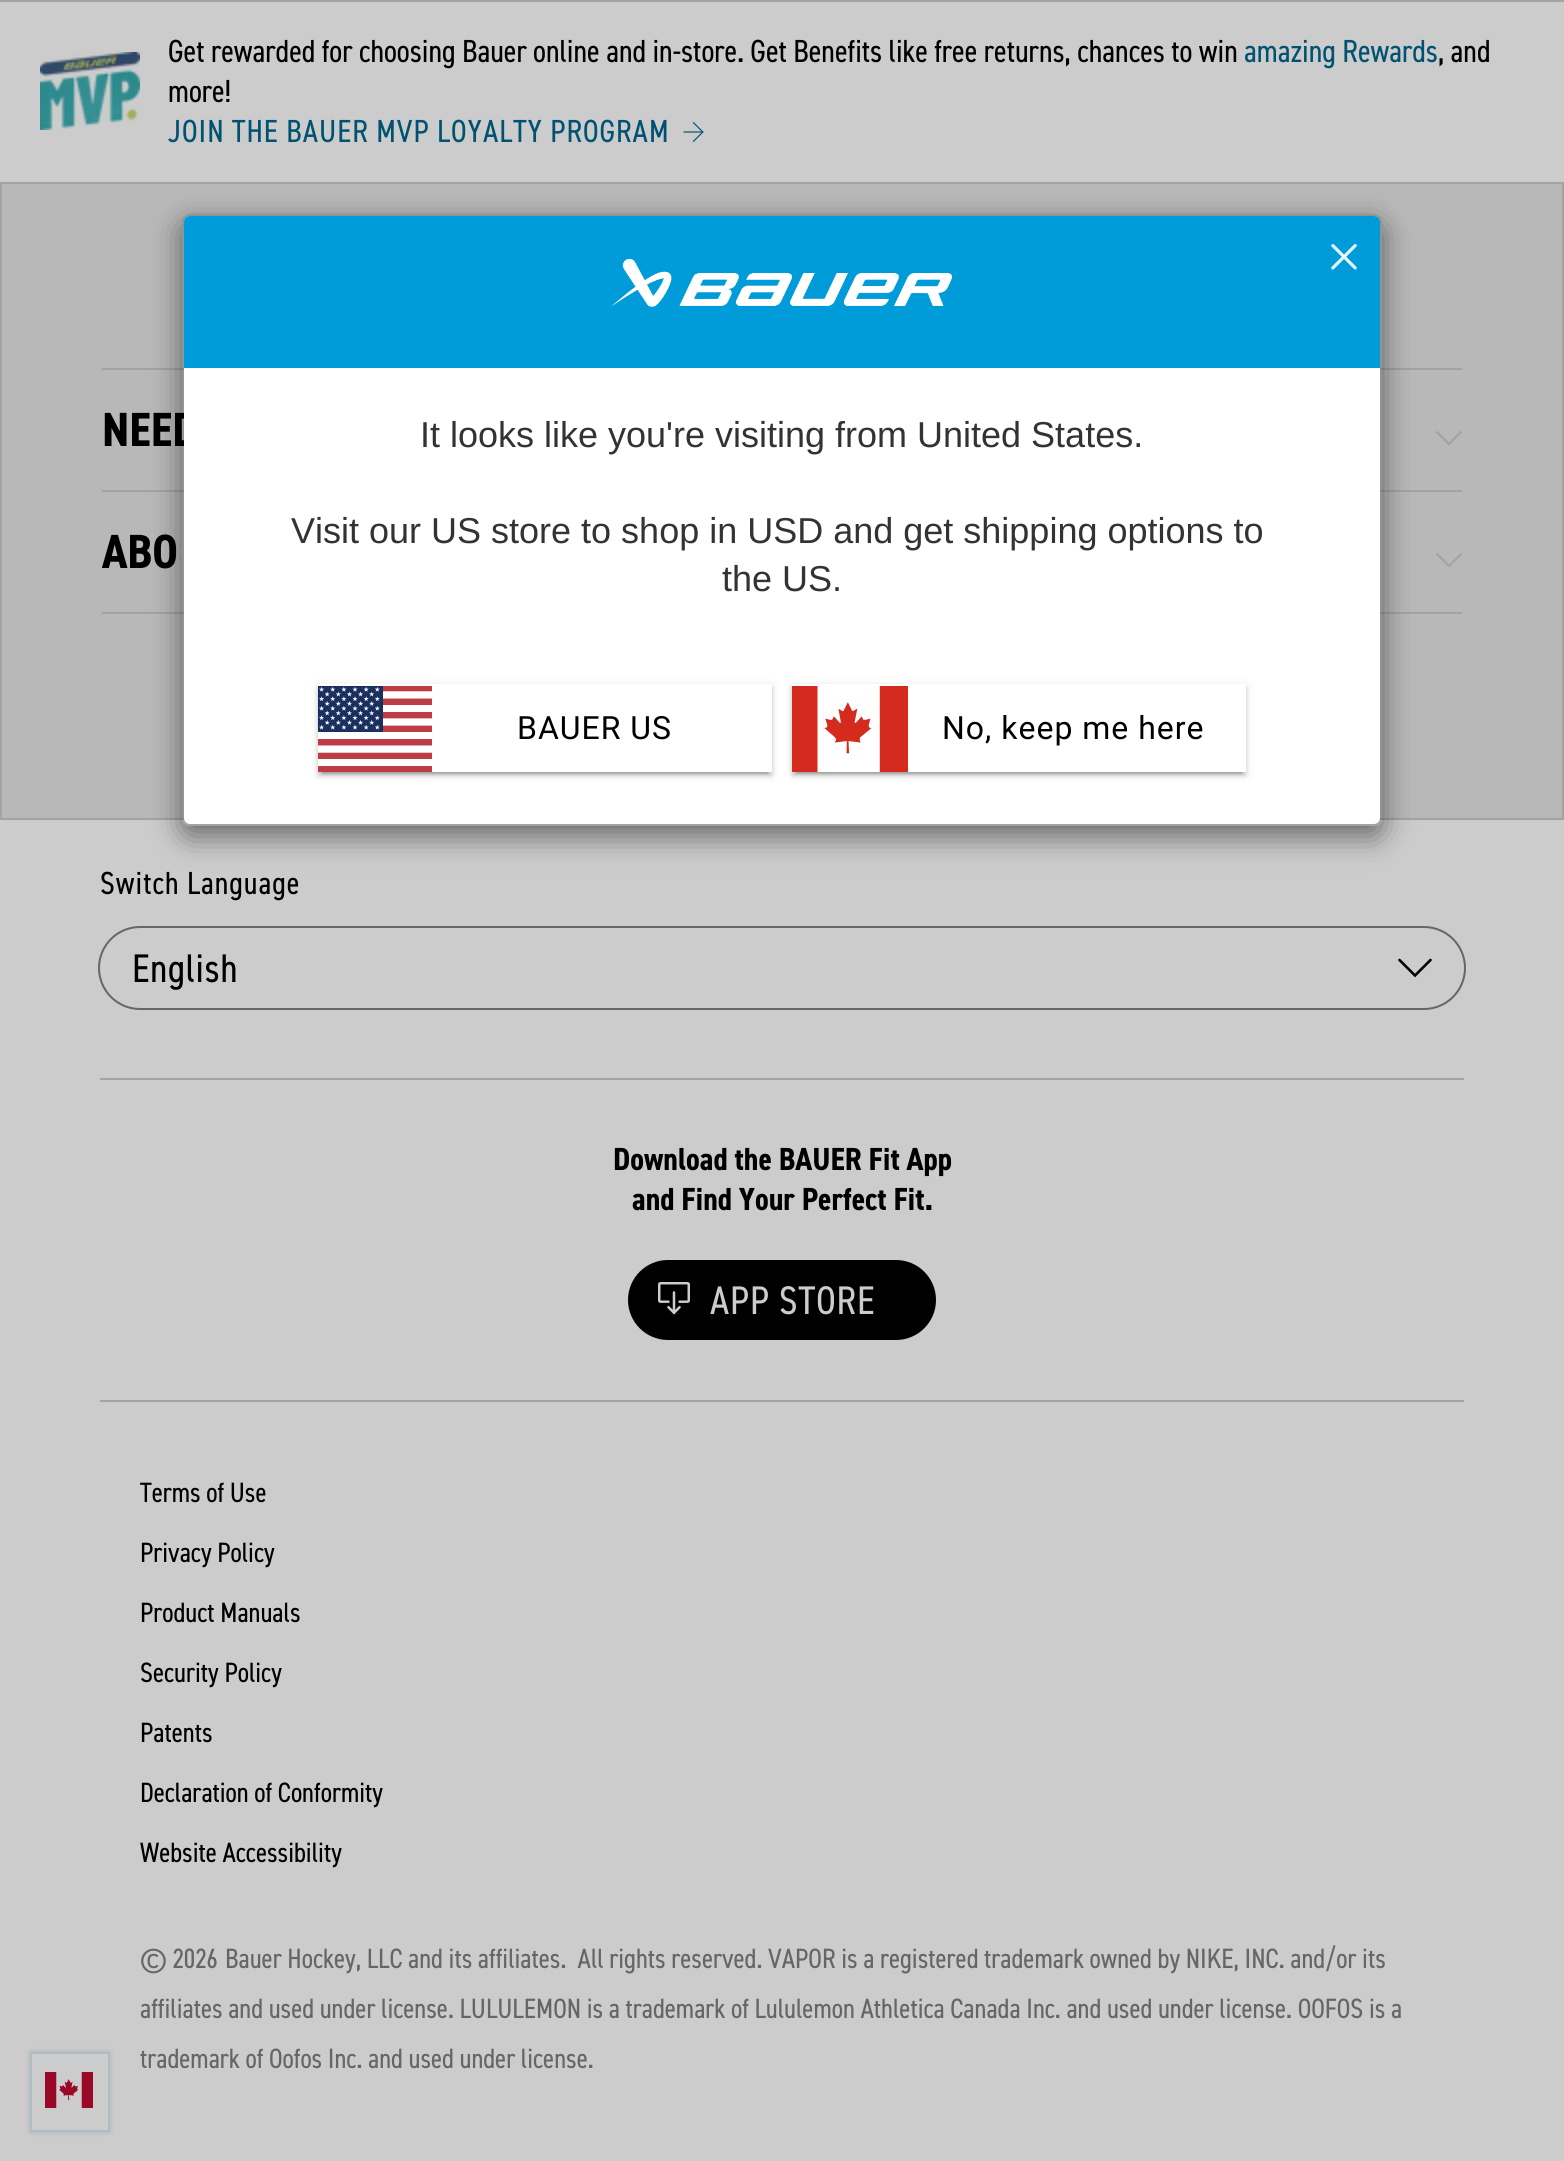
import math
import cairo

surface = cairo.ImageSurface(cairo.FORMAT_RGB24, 1564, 2161)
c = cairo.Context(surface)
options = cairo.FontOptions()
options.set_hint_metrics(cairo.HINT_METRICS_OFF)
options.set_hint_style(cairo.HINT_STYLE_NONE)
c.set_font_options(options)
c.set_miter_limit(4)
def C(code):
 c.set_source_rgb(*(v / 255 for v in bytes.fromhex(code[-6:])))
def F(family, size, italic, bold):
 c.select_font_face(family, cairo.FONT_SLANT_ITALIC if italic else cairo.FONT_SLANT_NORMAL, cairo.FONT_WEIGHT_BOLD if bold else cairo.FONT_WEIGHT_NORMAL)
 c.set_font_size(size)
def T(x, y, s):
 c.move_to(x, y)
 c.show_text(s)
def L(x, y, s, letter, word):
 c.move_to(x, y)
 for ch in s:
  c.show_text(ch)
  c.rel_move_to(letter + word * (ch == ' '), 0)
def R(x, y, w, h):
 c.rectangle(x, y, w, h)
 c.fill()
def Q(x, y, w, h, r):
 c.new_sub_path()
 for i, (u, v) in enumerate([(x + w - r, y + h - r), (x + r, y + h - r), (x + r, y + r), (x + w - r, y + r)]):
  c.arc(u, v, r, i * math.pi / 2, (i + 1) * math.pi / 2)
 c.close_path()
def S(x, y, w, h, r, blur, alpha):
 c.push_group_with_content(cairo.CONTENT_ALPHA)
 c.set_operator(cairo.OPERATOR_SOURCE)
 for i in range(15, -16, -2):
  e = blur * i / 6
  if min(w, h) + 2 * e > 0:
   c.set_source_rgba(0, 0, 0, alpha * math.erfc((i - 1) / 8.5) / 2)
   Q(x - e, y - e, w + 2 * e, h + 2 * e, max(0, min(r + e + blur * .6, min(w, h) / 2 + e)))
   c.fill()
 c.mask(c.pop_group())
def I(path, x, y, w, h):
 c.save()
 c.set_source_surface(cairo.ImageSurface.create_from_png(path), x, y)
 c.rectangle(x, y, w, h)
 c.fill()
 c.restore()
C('cccccc')
c.paint()
C('a3a3a3')
R(0,0,1564,2)
I('1.png',40,52,100,78)
F('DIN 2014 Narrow',32,0,0)
C('000000')
T(168,62,'Get rewarded for choosing Bauer online and in-store. Get Benefits like free returns, chances to win')
C('005272')
T(1244,62,'amazing Rewards')
C('000000')
T(1438,62,', and')
T(168,102,'more!')
C('005272')
L(168,142,'JOIN THE BAUER MVP LOYALTY PROGRAM',1,0)
I('2.png',683,122,21,20)
C('b8b8b8')
c.rectangle(1,183,1562,636)
c.fill_preserve()
C('a3a3a3')
c.stroke()
R(102,368,1360,2)
F('DIN 2014 Narrow',48,0,1)
C('000000')
T(102,446,'NEED')
c.new_path()
c.move_to(1437,432)
c.line_to(1449,444)
c.line_to(1461,432)
C('a3a3a3')
c.set_line_cap(cairo.LINE_CAP_ROUND)
c.stroke()
R(102,490,1360,2)
R(102,612,1360,2)
C('000000')
T(102,568,'ABO')
c.new_path()
c.move_to(1437,554)
c.line_to(1449,566)
c.line_to(1461,554)
C('a3a3a3')
c.stroke()
F('DIN 2014 Narrow',32,0,0)
C('000000')
L(100,894,'Switch Language',1,0)
Q(99,927,1366,82,41)
C('666666')
c.set_line_cap(cairo.LINE_CAP_BUTT)
c.stroke()
F('DIN 2014 Narrow',40,0,0)
C('000000')
L(132,982,'English',.75,0)
c.new_path()
c.move_to(1399.5,960)
c.line_to(1415,975.5)
c.line_to(1430.5,960)
c.set_line_width(2.6)
c.set_line_cap(cairo.LINE_CAP_ROUND)
c.stroke()
C('a3a3a3')
R(100,1078,1364,2)
R(100,1400,1364,2)
F('DIN 2014 Narrow',32,0,1)
C('000000')
T(613,1170,'Download the BAUER Fit App')
T(632,1210,'and Find Your Perfect Fit.')
Q(628,1260,308,80,40)
c.fill()
I('3.png',658,1282,32,33)
F('DIN 2014 Narrow',40,0,0)
C('cccccc')
L(710,1314,'APP STORE',1,0)
F('DIN 2014 Narrow',28,0,0)
C('000000')
T(140,1502,'Terms of Use')
T(140,1562,'Privacy Policy')
T(140,1622,'Product Manuals')
T(140,1682,'Security Policy')
T(140,1742,'Patents')
T(140,1802,'Declaration of Conformity')
T(140,1862,'Website Accessibility')
C('666666')
T(140,1968,'© 2026')
T(225,1968,'Bauer Hockey, LLC and its affiliates.  All rights reserved. VAPOR is a registered trademark owned by NIKE, INC. and/or its')
T(140,2018,'affiliates and used under license. LULULEMON is a trademark of Lululemon Athletica Canada Inc. and used under license. OOFOS is a')
T(140,2068,'trademark of Oofos Inc. and used under license.')
c.save()
c.set_fill_rule(cairo.FILL_RULE_EVEN_ODD)
c.new_path()
c.move_to(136,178)
c.line_to(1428,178)
c.line_to(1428,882)
c.line_to(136,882)
c.close_path()
c.move_to(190,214)
c.line_to(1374,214)
c.curve_to(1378.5,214,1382,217.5,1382,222)
c.line_to(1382,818)
c.curve_to(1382,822.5,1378.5,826,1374,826)
c.line_to(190,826)
c.curve_to(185.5,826,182,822.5,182,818)
c.line_to(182,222)
c.curve_to(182,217.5,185.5,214,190,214)
c.close_path()
c.clip()
C('000000')
S(182,224,1200,612,8,15,.5)
c.restore()
C('ffffff')
Q(184,216,1196,608,6)
c.fill()
Q(183,215,1198,610,7)
c.set_source_rgba(0,0,0,0.2)
c.set_line_width(2)
c.set_line_cap(cairo.LINE_CAP_BUTT)
c.stroke()
C('009cda')
c.new_path()
c.move_to(190,216)
c.line_to(1374,216)
c.curve_to(1377.5,216,1380,218.5,1380,222)
c.line_to(1380,368)
c.line_to(184,368)
c.line_to(184,222)
c.curve_to(184,218.5,186.5,216,190,216)
c.close_path()
c.fill()
I('4.png',612,259,340,48)
I('5.png',1331,244,26,26)
F('Liberation Sans',36,0,0)
C('333333')
T(420,447,'It looks like you\'re visiting from United States.')
T(291,543,'Visit our US store to shop in USD and get shipping options to')
T(722,591,'the US.')
C('000000')
S(318,686,454,88,0,5,.12)
S(322,694,446,80,0,1,.2)
S(318,688,454,88,0,2,.14)
C('ffffff')
R(318,684,454,88)
I('6.png',318,686,114,86)
F('Roboto',32,0,0)
C('000000')
L(517,739,'BAUER US',1,0)
C('000000')
S(792,686,454,88,0,5,.12)
S(796,694,446,80,0,1,.2)
S(792,688,454,88,0,2,.14)
C('ffffff')
R(792,684,454,88)
I('7.png',792,686,116,86)
C('000000')
L(942,739,'No, keep me here',1,0)
C('000000')
S(30,2052,80,80,0,2,.06)
S(30,2052,80,80,0,3,.1)
C('cccccc')
c.rectangle(31,2053,78,78)
c.fill_preserve()
C('adbdc6')
c.stroke()
I('8.png',45,2072,48,36)
surface.write_to_png('o.png')
